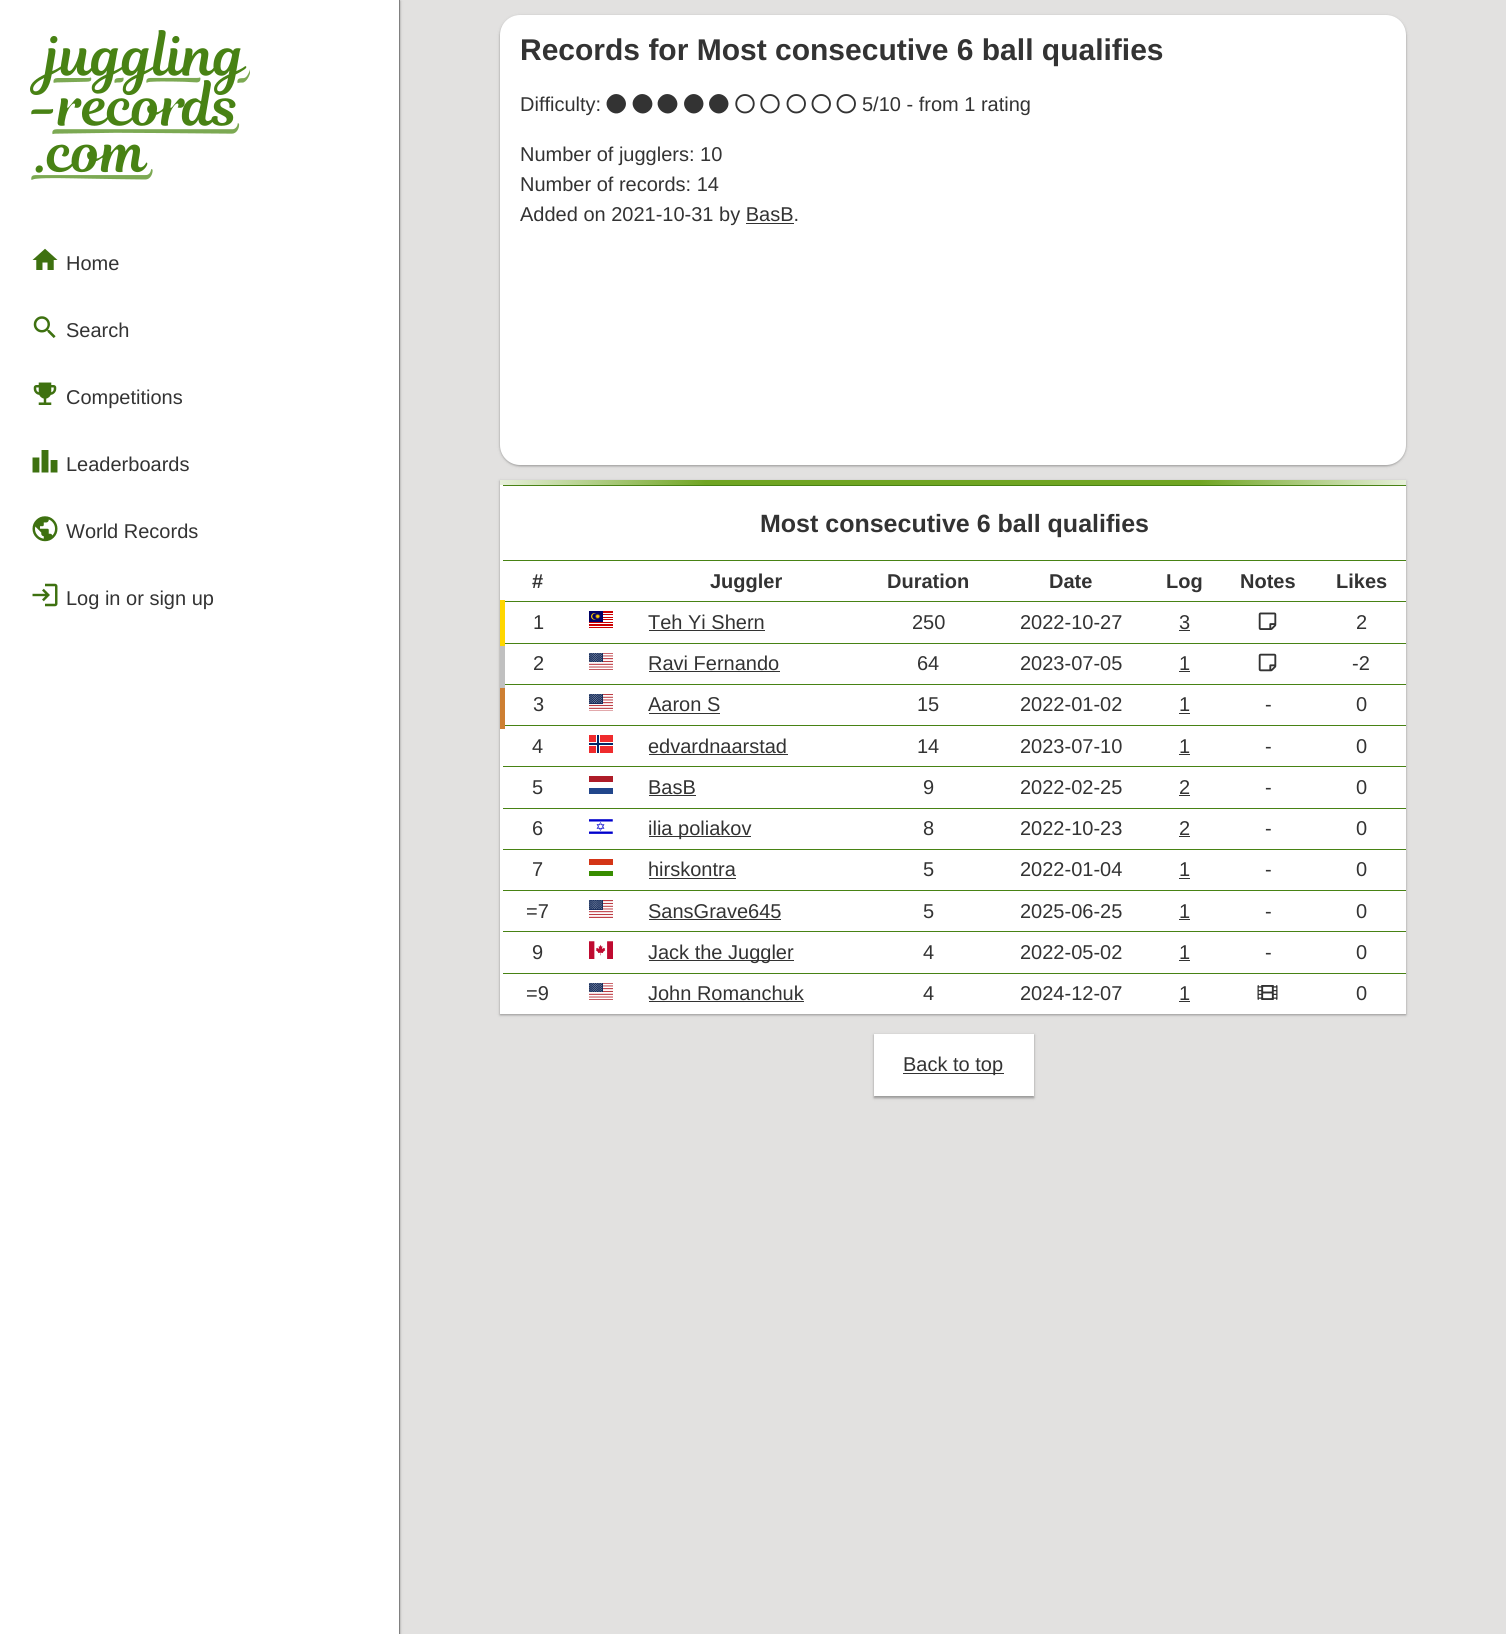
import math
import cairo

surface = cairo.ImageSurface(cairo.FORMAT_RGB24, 1506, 1634)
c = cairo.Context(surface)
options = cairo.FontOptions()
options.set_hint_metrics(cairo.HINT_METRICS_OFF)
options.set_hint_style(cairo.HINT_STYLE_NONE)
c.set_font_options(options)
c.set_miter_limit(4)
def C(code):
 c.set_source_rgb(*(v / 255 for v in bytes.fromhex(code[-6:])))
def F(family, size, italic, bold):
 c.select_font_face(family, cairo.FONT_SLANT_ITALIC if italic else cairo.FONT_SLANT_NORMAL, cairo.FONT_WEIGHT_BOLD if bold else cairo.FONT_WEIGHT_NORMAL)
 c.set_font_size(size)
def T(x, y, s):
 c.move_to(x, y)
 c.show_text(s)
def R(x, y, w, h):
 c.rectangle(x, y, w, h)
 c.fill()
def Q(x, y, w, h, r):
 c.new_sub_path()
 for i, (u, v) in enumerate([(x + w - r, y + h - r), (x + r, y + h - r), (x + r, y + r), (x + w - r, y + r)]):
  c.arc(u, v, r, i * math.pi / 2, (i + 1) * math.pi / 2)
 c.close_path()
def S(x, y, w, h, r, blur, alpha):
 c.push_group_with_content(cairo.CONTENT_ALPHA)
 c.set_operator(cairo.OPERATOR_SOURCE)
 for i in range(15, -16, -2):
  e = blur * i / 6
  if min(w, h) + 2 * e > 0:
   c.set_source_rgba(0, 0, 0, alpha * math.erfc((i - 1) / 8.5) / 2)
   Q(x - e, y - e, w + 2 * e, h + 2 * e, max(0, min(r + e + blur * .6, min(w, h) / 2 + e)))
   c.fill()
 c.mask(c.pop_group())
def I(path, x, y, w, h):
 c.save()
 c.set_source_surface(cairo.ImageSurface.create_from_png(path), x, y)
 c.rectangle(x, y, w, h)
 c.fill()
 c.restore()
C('e2e1e0')
c.paint()
C('000000')
S(0,1,400,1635,0,1,.24)
S(0,1,400,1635,0,2,.12)
C('ffffff')
R(0,0,399,1634)
C('808080')
R(399,0,1,1634)
I('1.png',30,30,220,150)
I('2.png',32,248,26,22)
F('Liberation Sans',20,0,0)
C('333333')
T(66,270,'Home')
I('3.png',33,316,23,22)
T(66,337,'Search')
I('4.png',33,382,24,23)
T(66,404,'Competitions')
I('5.png',32,450,26,23)
T(66,471,'Leaderboards')
I('6.png',32,516,26,26)
T(66,538,'World Records')
I('7.png',32,583,26,24)
T(66,605,'Log in or sign up')
C('000000')
S(500,16,906,450,20,1,.24)
S(500,16,906,450,20,2,.12)
C('ffffff')
Q(500,15,906,450,20)
c.fill()
F('Liberation Sans',30,0,1)
C('333333')
T(520,60,'Records for Most consecutive 6 ball qualifies')
F('Liberation Sans',20,0,0)
T(520,111,'Difficulty:')
c.new_path()
c.move_to(609.5,97)
c.curve_to(618.5,88,632,101.5,623,110.5)
c.curve_to(614,119.5,600.5,106,609.5,97)
c.close_path()
c.move_to(635.5,97)
c.curve_to(644.5,88,658.5,101.5,649.5,110.5)
c.curve_to(640.5,119.5,626.5,106,635.5,97)
c.close_path()
c.fill()
c.new_path()
c.move_to(660.5,97)
c.curve_to(669.5,88,683.5,101.5,674.5,110.5)
c.curve_to(665.5,119.5,651.5,106,660.5,97)
c.close_path()
c.move_to(687,97)
c.curve_to(696,88,709.5,101.5,700.5,110.5)
c.curve_to(691.5,119.5,678,106,687,97)
c.close_path()
c.fill()
c.new_path()
c.move_to(712,97)
c.curve_to(721,88,734.5,101.5,725.5,110.5)
c.curve_to(716.5,119.5,703,106,712,97)
c.close_path()
c.fill()
I('8.png',735,94,20,20)
I('8.png',760,94,20,20)
I('9.png',786,94,20,20)
I('9.png',811,94,20,20)
I('9.png',836,94,20,20)
T(862,111,'5/10 - from 1 rating')
T(520,161,'Number of jugglers: 10')
T(520,191,'Number of records: 14')
T(520,221,'Added on 2021-10-31 by BasB.')
R(746,223,48,1)
C('000000')
S(500,481,906,534,0,1,.24)
S(500,481,906,534,0,2,.12)
C('ffffff')
R(500,485,906,529)
I('10.png',500,480,907,5)
C('488214')
R(503,485,903,1)
R(503,560,903,1)
F('Liberation Sans',25,0,1)
C('333333')
T(760,532,'Most consecutive 6 ball qualifies')
F('Liberation Sans',20,0,1)
T(532,588,'#')
T(710,588,'Juggler')
T(887,588,'Duration')
T(1049,588,'Date')
T(1166,588,'Log')
T(1240,588,'Notes')
T(1336,588,'Likes')
C('488214')
R(503,601,903,1)
R(503,643,903,1)
R(503,684,903,1)
R(503,725,903,1)
C('cd7f32')
R(500,683,5,46)
C('c0c0c0')
R(500,641,5,47)
C('ffd700')
R(500,600,5,46)
F('Liberation Sans',20,0,0)
C('333333')
T(533,629,'1')
I('11.png',589,611,24,17)
T(648,629,'Teh Yi Shern')
R(649,630,116,1)
T(912,629,'250')
T(1020,629,'2022-10-27')
T(1179,629,'3')
R(1179,630,11,1)
I('12.png',1258,612,19,18)
T(1356,629,'2')
T(533,670,'2')
I('13.png',589,653,24,17)
T(648,670,'Ravi Fernando')
R(649,671,131,1)
T(917,670,'64')
T(1020,670,'2023-07-05')
T(1179,670,'1')
R(1179,671,11,1)
I('14.png',1258,653,19,19)
T(1352,670,'-2')
T(533,711,'3')
I('15.png',589,694,24,17)
T(648,711,'Aaron S')
R(649,713,71,1)
T(917,711,'15')
T(1020,711,'2022-01-02')
T(1179,711,'1')
R(1179,713,11,1)
T(1265,711,'-')
T(1356,711,'0')
T(532,753,'4')
C('ef2b2d')
R(589,735,24,18)
C('ffffff')
R(596,735,4,18)
R(589,742,24,4)
C('002868')
R(597,735,2,18)
R(589,743,24,2)
C('333333')
T(648,753,'edvardnaarstad')
R(649,754,139,1)
T(917,753,'14')
T(1020,753,'2023-07-10')
T(1179,753,'1')
R(1179,754,11,1)
T(1265,753,'-')
T(1356,753,'0')
C('488214')
R(503,766,903,1)
C('333333')
T(532,794,'5')
C('21468b')
R(589,788,24,6)
C('ae1c28')
R(589,776,24,6)
C('333333')
T(648,794,'BasB')
R(649,795,47,1)
T(923,794,'9')
T(1020,794,'2022-02-25')
T(1179,794,'2')
R(1179,795,11,1)
T(1265,794,'-')
T(1356,794,'0')
C('488214')
R(503,808,903,1)
C('333333')
T(532,835,'6')
I('16.png',589,819,24,15)
R(649,836,102,1)
T(648,835,'ilia poliakov')
T(923,835,'8')
T(1020,835,'2022-10-23')
T(1179,835,'2')
R(1179,836,11,1)
T(1265,835,'-')
T(1356,835,'0')
C('488214')
R(503,849,903,1)
C('333333')
T(532,876,'7')
C('388d00')
R(589,871,24,5)
C('d43516')
R(589,859,24,6)
C('333333')
T(648,876,'hirskontra')
R(649,878,87,1)
T(923,876,'5')
T(1020,876,'2022-01-04')
T(1179,876,'1')
R(1179,878,11,1)
T(1265,876,'-')
T(1356,876,'0')
C('488214')
R(503,890,903,1)
C('333333')
T(526,918,'=7')
I('17.png',589,900,24,18)
T(648,918,'SansGrave645')
R(649,919,132,1)
T(923,918,'5')
T(1020,918,'2025-06-25')
T(1179,918,'1')
R(1179,919,11,1)
T(1265,918,'-')
T(1356,918,'0')
C('488214')
R(503,931,903,1)
C('333333')
T(532,959,'9')
I('18.png',589,941,24,18)
R(649,960,145,1)
T(648,959,'Jack the Juggler')
T(923,959,'4')
T(1020,959,'2022-05-02')
T(1179,959,'1')
R(1179,960,11,1)
T(1265,959,'-')
T(1356,959,'0')
C('488214')
R(503,973,903,1)
C('333333')
T(526,1000,'=9')
I('13.png',589,983,24,17)
T(648,1000,'John Romanchuk')
R(649,1001,155,1)
T(923,1000,'4')
T(1020,1000,'2024-12-07')
T(1179,1000,'1')
R(1179,1001,11,1)
I('19.png',1257,985,21,15)
T(1356,1000,'0')
C('000000')
S(874,1035,160,63,0,1,.24)
S(874,1035,160,63,0,2,.12)
C('ffffff')
R(874,1034,160,62)
C('333333')
R(903,1073,101,1)
T(903,1071,'Back to top')
surface.write_to_png('o.png')
